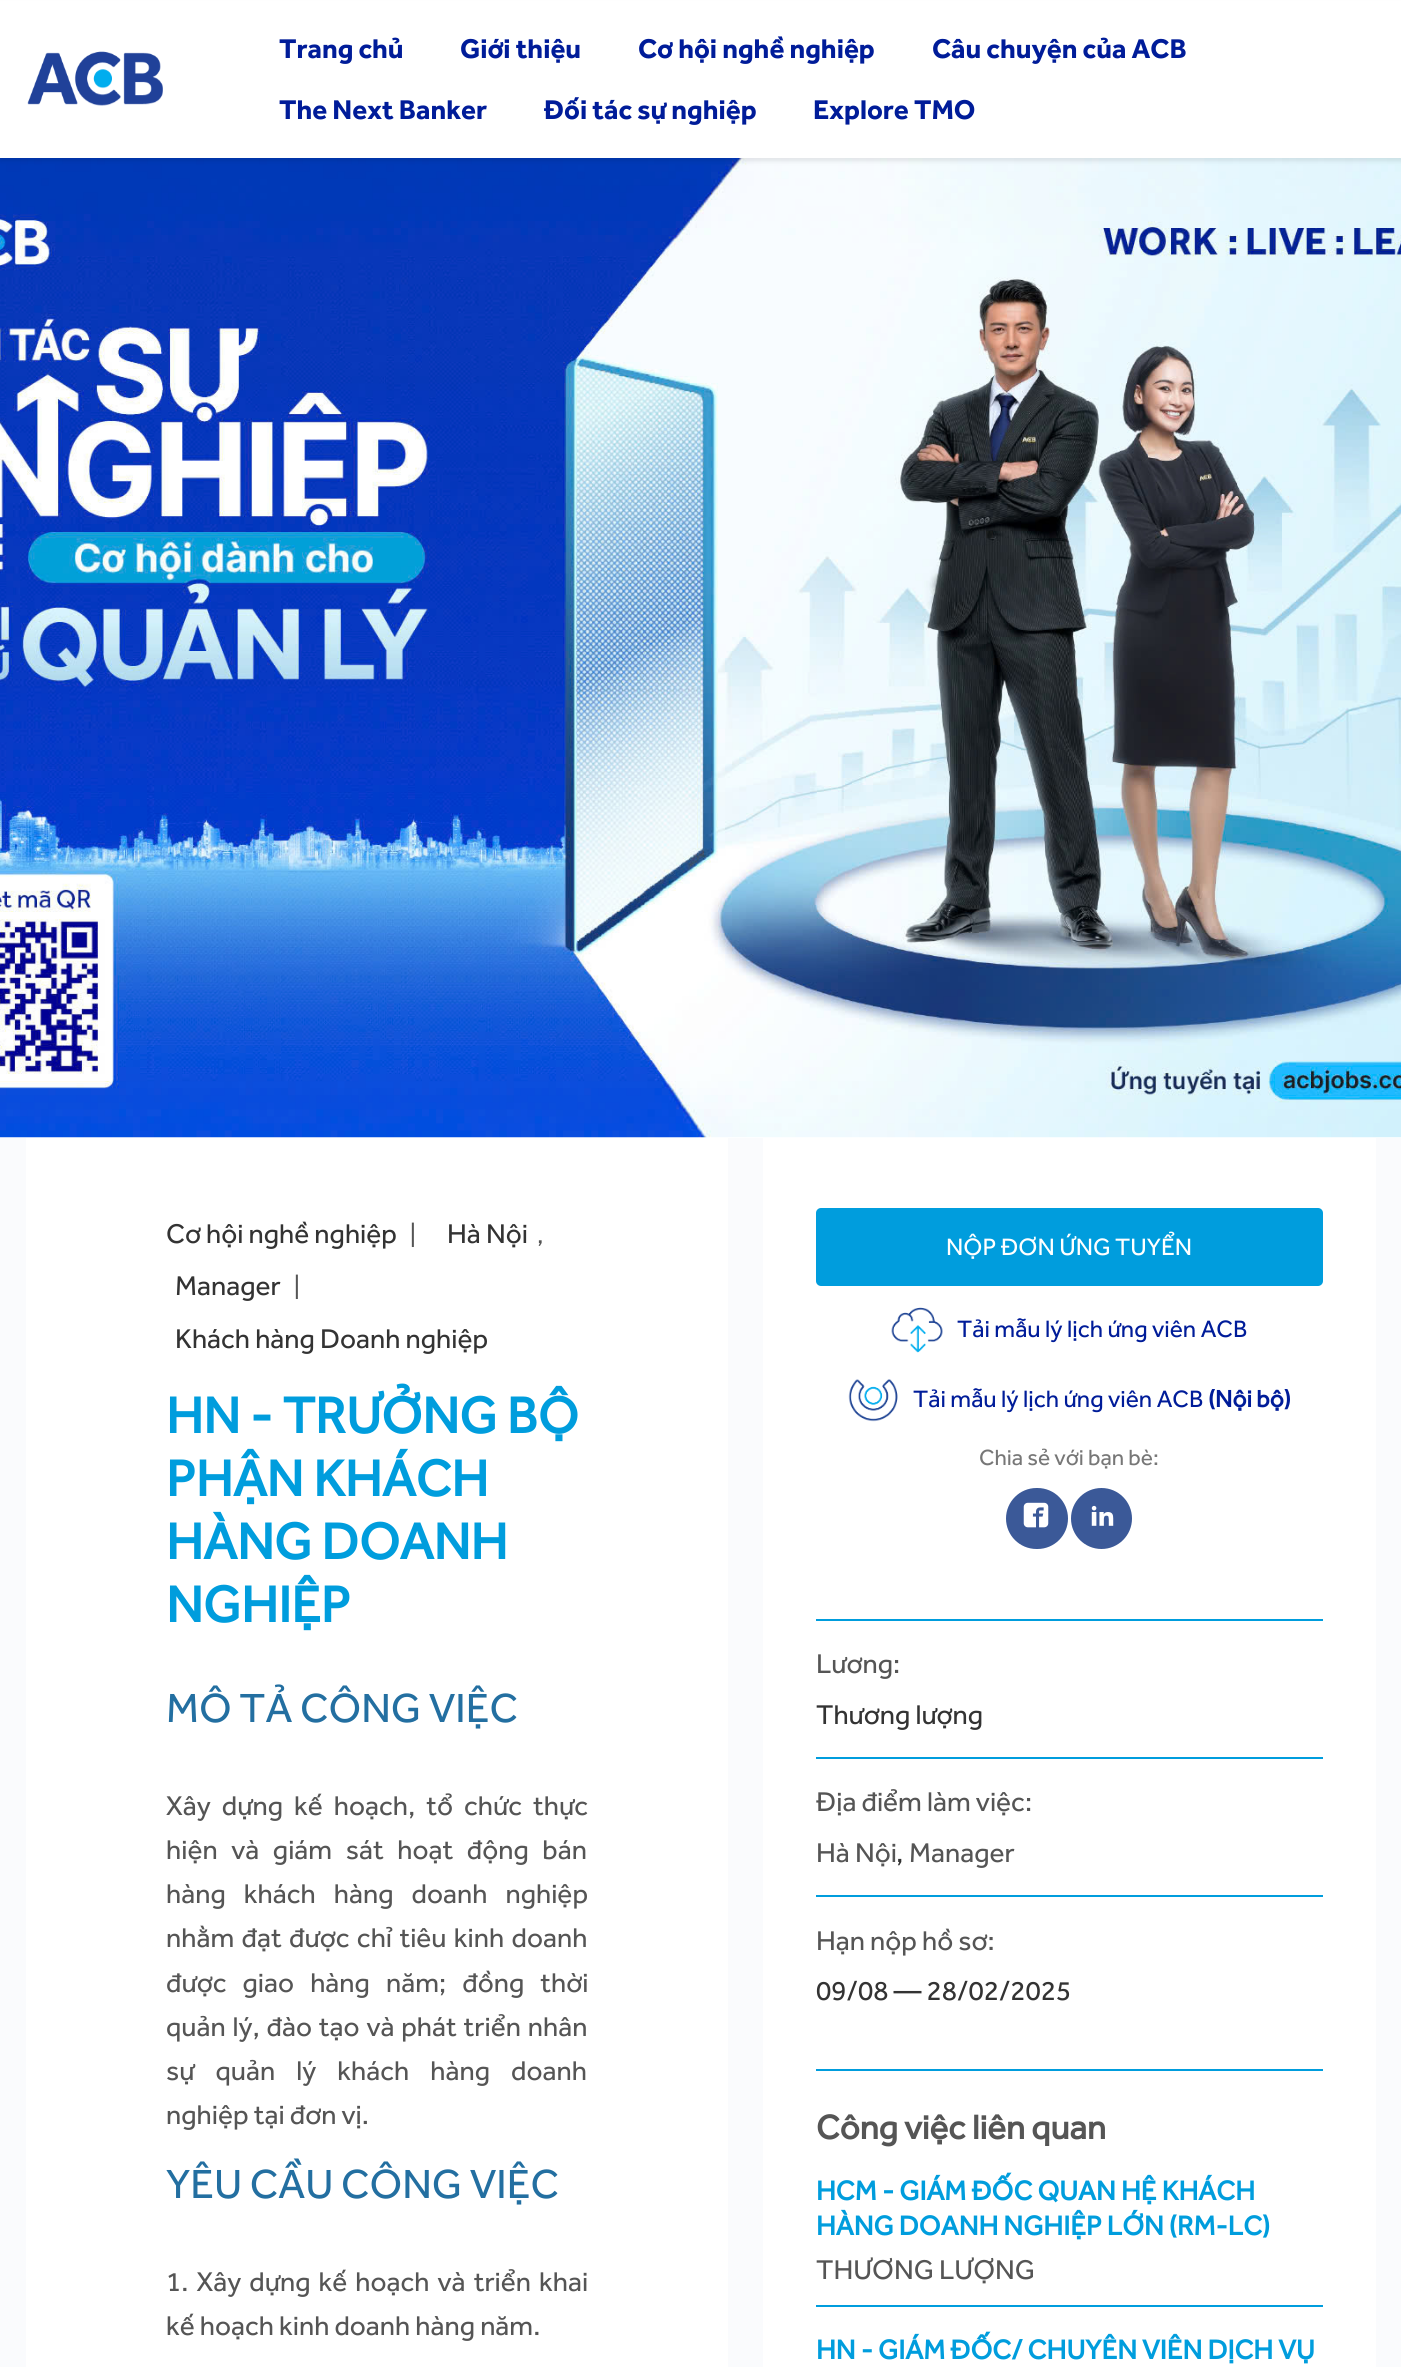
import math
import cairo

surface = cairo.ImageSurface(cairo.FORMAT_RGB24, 1401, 2367)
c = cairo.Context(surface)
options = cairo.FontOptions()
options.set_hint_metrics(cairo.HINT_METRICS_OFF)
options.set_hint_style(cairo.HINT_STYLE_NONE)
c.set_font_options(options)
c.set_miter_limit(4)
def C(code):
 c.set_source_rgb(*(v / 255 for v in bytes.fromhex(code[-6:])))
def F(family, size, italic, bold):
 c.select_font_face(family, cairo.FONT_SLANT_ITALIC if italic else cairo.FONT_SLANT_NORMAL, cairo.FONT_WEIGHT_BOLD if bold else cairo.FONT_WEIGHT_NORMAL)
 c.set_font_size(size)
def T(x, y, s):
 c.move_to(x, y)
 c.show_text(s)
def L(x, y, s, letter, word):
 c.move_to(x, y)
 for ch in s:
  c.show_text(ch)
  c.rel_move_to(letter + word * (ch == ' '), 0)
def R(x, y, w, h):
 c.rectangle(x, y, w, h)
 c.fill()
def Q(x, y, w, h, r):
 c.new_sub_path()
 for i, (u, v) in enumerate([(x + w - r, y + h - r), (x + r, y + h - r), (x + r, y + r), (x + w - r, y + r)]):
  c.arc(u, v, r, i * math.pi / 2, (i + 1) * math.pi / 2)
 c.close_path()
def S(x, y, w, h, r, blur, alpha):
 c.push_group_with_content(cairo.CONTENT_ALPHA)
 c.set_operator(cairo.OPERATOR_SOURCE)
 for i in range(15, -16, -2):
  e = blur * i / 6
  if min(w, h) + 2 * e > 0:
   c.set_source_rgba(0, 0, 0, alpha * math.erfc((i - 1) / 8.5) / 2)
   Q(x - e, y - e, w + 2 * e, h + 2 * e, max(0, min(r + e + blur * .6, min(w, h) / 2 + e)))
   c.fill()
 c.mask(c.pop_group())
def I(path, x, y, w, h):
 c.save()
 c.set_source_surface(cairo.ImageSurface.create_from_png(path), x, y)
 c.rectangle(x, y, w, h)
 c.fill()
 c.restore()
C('ffffff')
c.paint()
I('2.png',0,158,1401,980)
C('000000')
S(0,4,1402,157,0,2.5,.1)
C('ffffff')
R(0,1,1401,157)
I('1.png',27,51,136,55)
F('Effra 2',28,0,1)
C('001c99')
T(279,58,'Trang chủ')
T(460,58,'Giới thiệu')
T(638,58,'Cơ hội nghề nghiệp')
T(932,58,'Câu chuyện của ACB')
T(279,119,'The Next Banker')
T(544,119,'Đối tác sự nghiệp')
T(813,119,'Explore TMO')
C('fafbfd')
R(0,1138,1401,1229)
C('ffffff')
R(26,1138,702,1229)
F('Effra',28,0,0)
C('333333')
T(166,1243,'Cơ hội nghề nghiệp')
F('Effra',24.5,0,0)
C('555555')
T(410,1243,'|')
F('Effra',28,0,0)
C('333333')
T(447,1243,'Hà Nội')
F('Effra',24.5,0,0)
C('555555')
T(537,1243,',')
F('Effra',28,0,0)
C('333333')
T(175,1295,'Manager')
F('Effra',24.5,0,0)
C('555555')
T(294,1295,'|')
F('Effra',28,0,0)
C('333333')
T(175,1348,'Khách hàng Doanh nghiệp')
F('Effra',52.5,0,1)
C('009ddd')
T(166,1433,'HN - TRƯỞNG BỘ')
T(166,1496,'PHẬN KHÁCH')
T(166,1559,'HÀNG DOANH')
T(166,1622,'NGHIỆP')
F('Effra',42,0,0)
C('236fa1')
T(166,1722,'MÔ TẢ CÔNG VIỆC')
F('Effra',28,0,0)
C('555555')
L(166,1815,'Xây dựng kế hoạch, tổ chức thực',0,6)
L(166,1859,'hiện và giám sát hoạt động bán',0,8.5)
L(166,1903,'hàng khách hàng doanh nghiệp',0,13)
L(166,1947,'nhằm đạt được chỉ tiêu kinh doanh',0,2.25)
L(166,1992,'được giao hàng năm; đồng thời',0,11)
L(166,2036,'quản lý, đào tạo và phát triển nhân',0,1.75)
L(166,2080,'sự quản lý khách hàng doanh',0,16)
T(166,2124,'nghiệp tại đơn vị.')
F('Effra',42,0,0)
C('236fa1')
T(166,2198,'YÊU CẦU CÔNG VIỆC')
F('Effra',28,0,0)
C('555555')
L(166,2291,'1. Xây dựng kế hoạch và triển khai',0,3)
T(166,2335,'kế hoạch kinh doanh hàng năm.')
C('ffffff')
R(763,1138,613,1229)
C('009ddd')
Q(816,1208,507,78,5)
c.fill()
F('Effra',24.5,0,0)
C('ffffff')
T(946,1255,'NỘP ĐƠN ỨNG TUYỂN')
I('3.png',891,1307,52,46)
C('001c99')
T(957,1337,'Tải mẫu lý lịch ứng viên ACB')
I('4.png',848,1379,50,43)
T(913,1407,'Tải mẫu lý lịch ứng viên ACB')
F('Effra',24.5,0,1)
T(1208,1407,'(Nội bộ)')
F('Effra',22.75,0,0)
C('777777')
T(979,1465,'Chia sẻ với bạn bè:')
C('3b5998')
Q(1006,1488,62,61,30.5)
c.fill()
I('5.png',1023,1502,26,26)
c.arc(1101.5,1518.5,30.5,0,2 * math.pi)
c.fill()
I('6.png',1091,1505,23,21)
C('009ddd')
R(816,1619,507,2)
F('Effra',28,0,0)
C('555555')
T(816,1673,'Lương:')
C('333333')
T(816,1724,'Thương lượng')
C('009ddd')
R(816,1757,507,2)
C('555555')
T(816,1811,'Địa điểm làm việc:')
T(816,1862,'Hà Nội')
C('333333')
T(896,1862,',')
C('555555')
T(909,1862,'Manager')
C('009ddd')
R(816,1895,507,2)
C('555555')
T(816,1950,'Hạn nộp hồ sơ:')
C('333333')
T(816,2000,'09/08 — 28/02/2025')
C('009ddd')
R(816,2069,507,2)
F('Effra',35,0,1)
C('555555')
T(816,2139,'Công việc liên quan')
C('009ddd')
R(816,2305,507,2)
F('Effra',28,0,1)
T(816,2200,'HCM - GIÁM ĐỐC QUAN HỆ KHÁCH')
T(816,2235,'HÀNG DOANH NGHIỆP LỚN (RM-LC)')
F('Effra',28,0,0)
C('555555')
T(816,2279,'THƯƠNG LƯỢNG')
F('Effra',28,0,1)
C('009ddd')
T(816,2359,'HN - GIÁM ĐỐC/ CHUYÊN VIÊN DỊCH VỤ')
surface.write_to_png('o.png')
